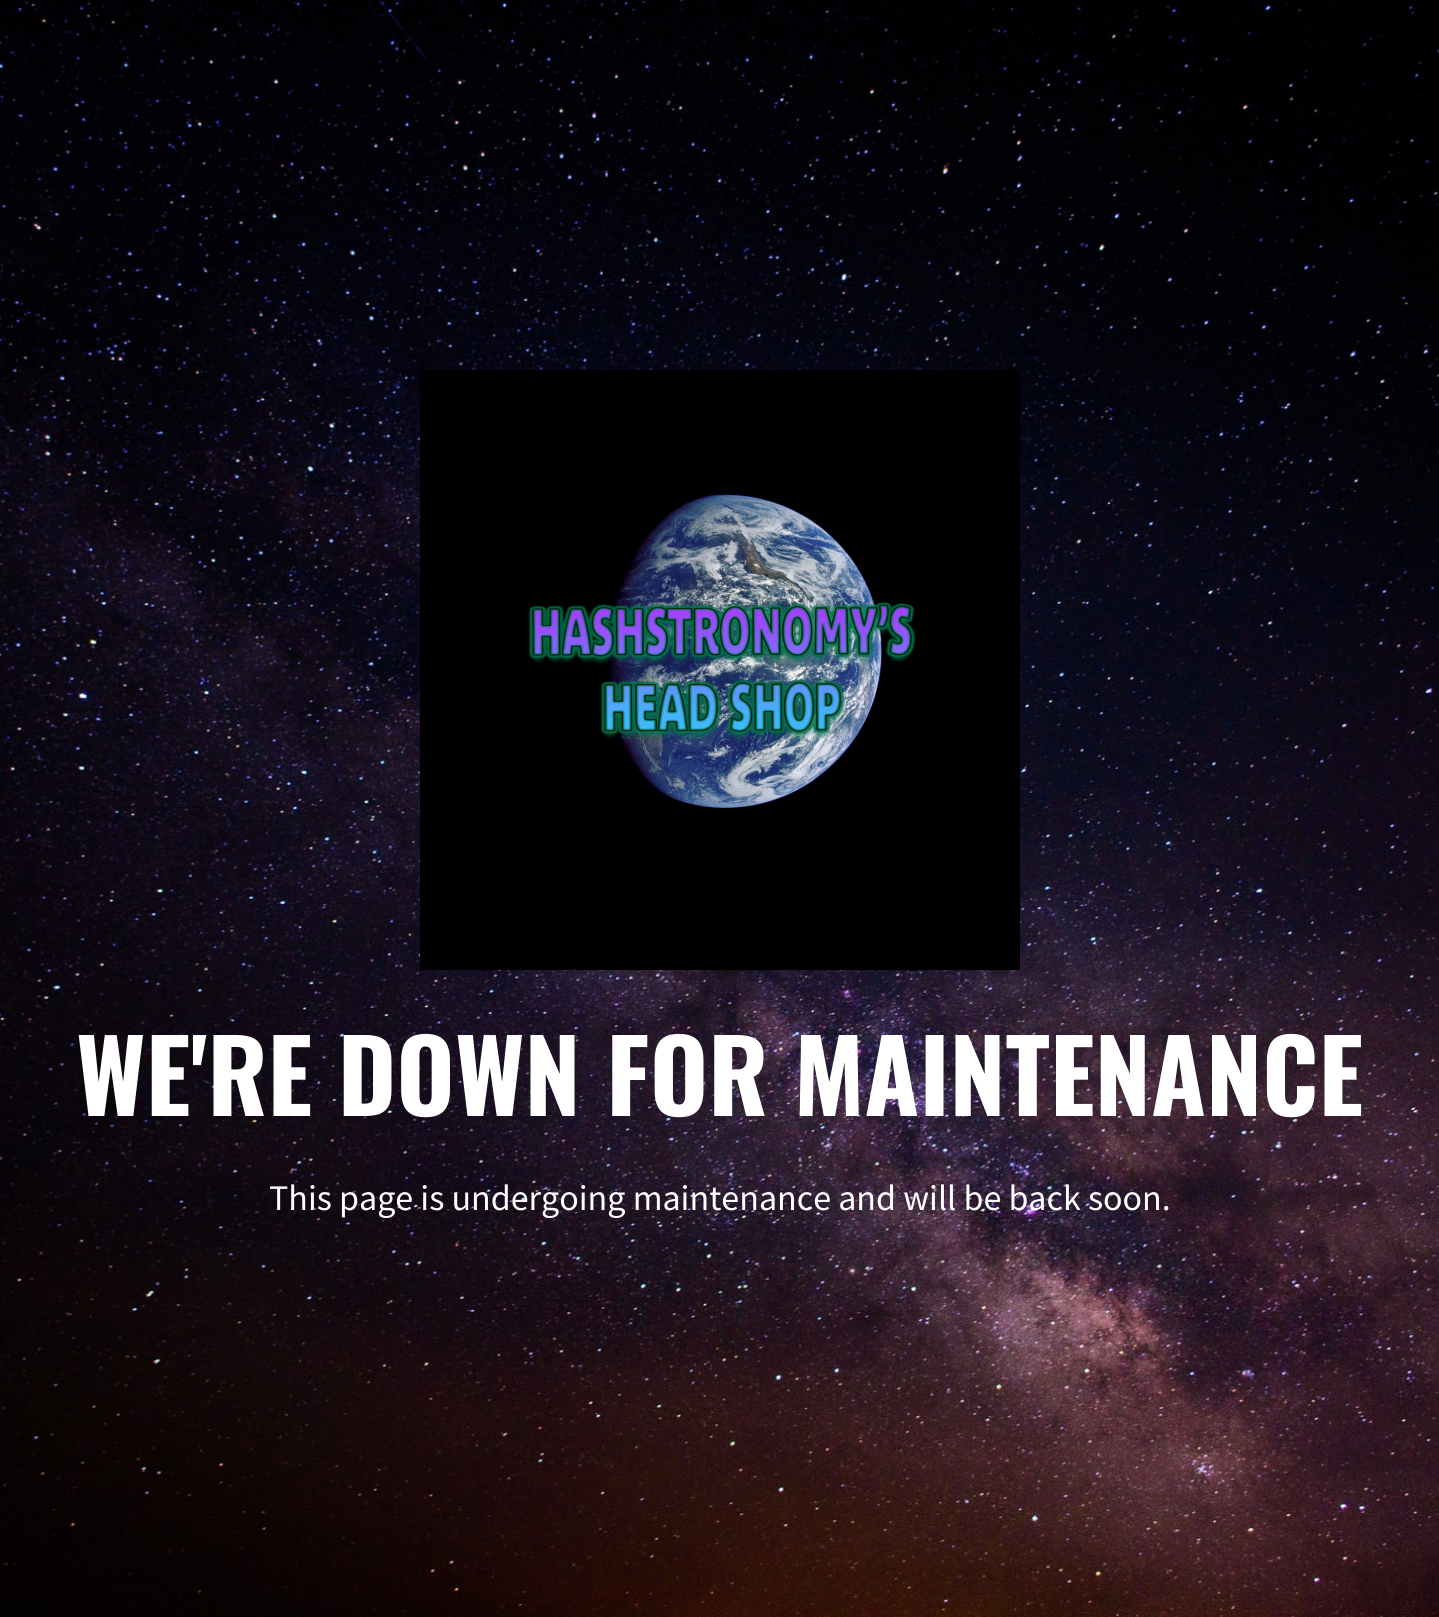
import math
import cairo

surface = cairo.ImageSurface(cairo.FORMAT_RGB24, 1439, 1617)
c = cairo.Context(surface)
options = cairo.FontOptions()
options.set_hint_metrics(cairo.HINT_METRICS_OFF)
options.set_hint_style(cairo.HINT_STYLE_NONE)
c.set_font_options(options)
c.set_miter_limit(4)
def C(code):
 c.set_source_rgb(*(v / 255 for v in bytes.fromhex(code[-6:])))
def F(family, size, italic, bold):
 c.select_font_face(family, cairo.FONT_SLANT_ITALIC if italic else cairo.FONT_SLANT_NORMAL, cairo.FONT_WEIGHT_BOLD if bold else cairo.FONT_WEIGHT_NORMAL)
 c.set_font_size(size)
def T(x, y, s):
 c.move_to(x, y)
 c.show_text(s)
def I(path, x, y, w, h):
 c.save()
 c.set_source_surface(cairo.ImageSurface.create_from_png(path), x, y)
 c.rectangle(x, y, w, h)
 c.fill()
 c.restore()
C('ffffff')
c.paint()
I('1.png',0,0,1439,1617)
I('2.png',420,370,600,600)
F('Oswald',100,0,1)
C('ffffff')
T(76,1116,'WE\'RE DOWN FOR MAINTENANCE')
F('Source Sans Pro',36,0,0)
T(269,1210,'This page is undergoing maintenance and will be back soon.')
surface.write_to_png('o.png')
